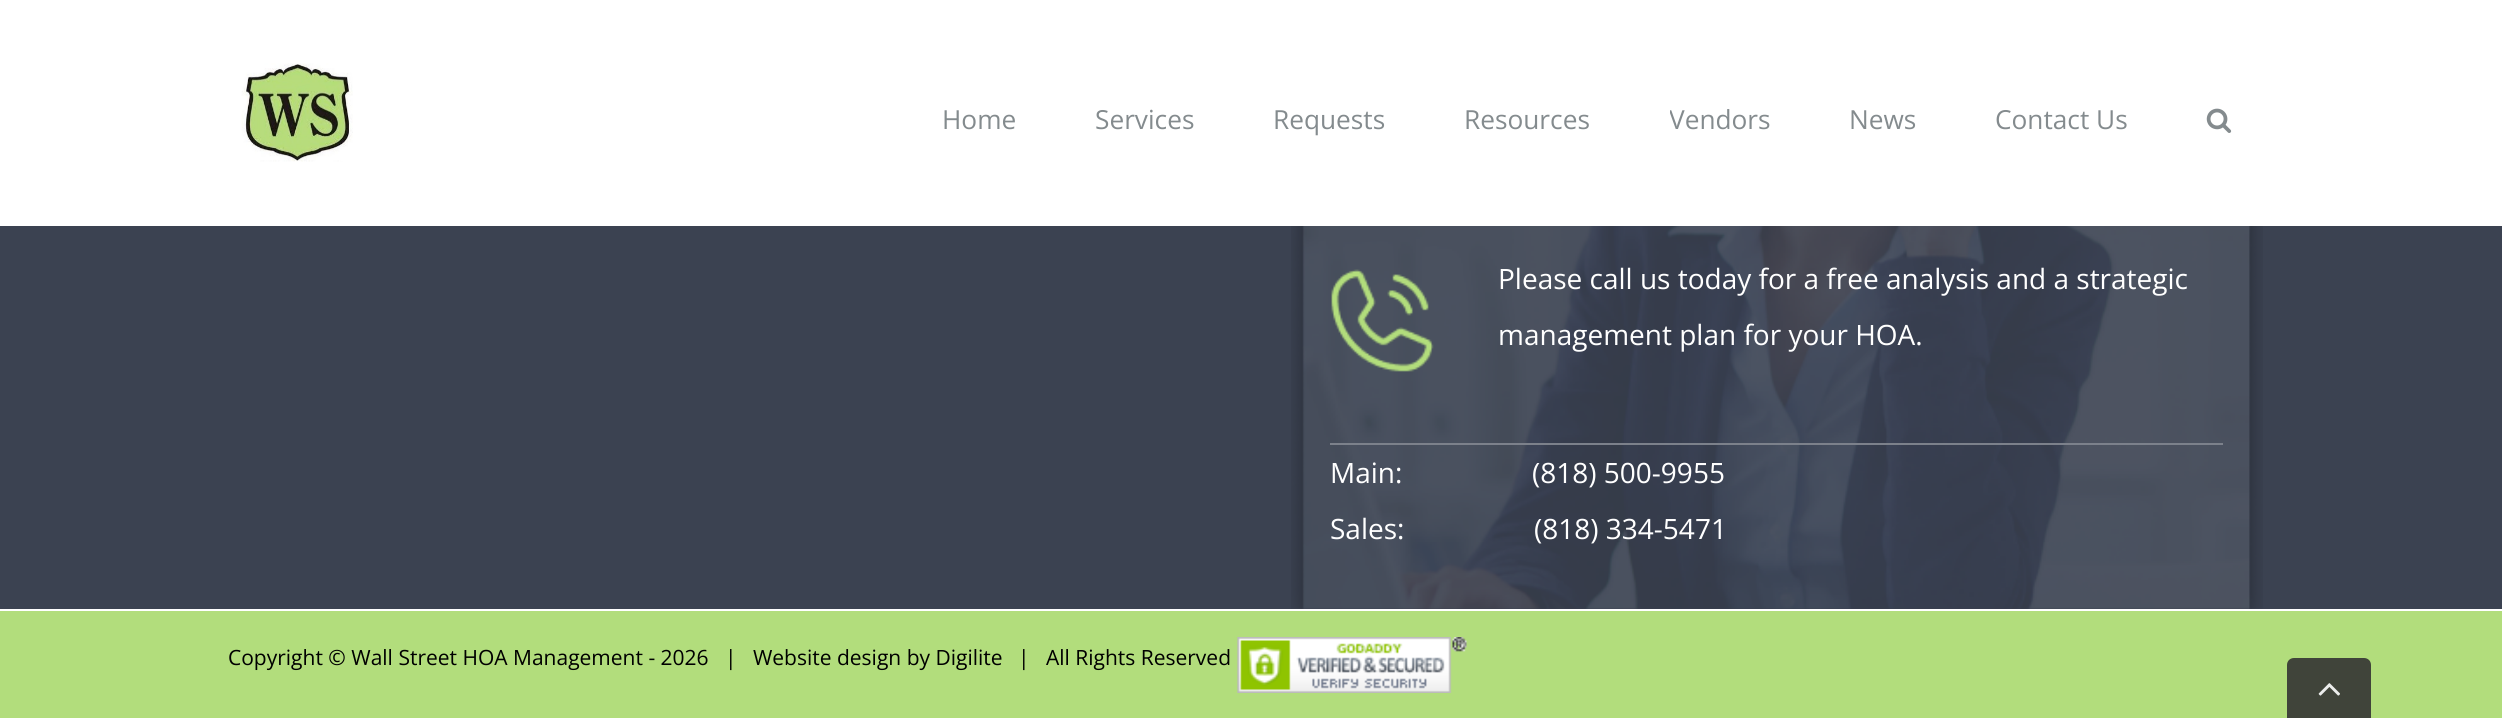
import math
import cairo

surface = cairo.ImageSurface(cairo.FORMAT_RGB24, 2502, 718)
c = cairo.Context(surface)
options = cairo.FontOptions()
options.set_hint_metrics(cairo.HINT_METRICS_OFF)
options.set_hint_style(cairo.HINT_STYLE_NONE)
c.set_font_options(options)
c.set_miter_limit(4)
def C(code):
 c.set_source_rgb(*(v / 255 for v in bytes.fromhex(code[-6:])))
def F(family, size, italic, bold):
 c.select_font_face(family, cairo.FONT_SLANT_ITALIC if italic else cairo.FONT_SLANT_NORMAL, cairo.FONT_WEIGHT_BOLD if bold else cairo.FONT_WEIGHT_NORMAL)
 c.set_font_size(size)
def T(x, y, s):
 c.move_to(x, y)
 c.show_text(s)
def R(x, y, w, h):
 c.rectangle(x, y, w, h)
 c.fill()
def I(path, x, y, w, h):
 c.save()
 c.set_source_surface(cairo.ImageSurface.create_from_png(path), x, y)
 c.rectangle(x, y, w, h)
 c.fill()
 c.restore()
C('3b4251')
c.paint()
C('ffffff')
R(0,0,2502,226)
I('1.png',241,63,112,99)
F('Open Sans',26.25,0,0)
C('848b8e')
T(942,129,'Home')
T(1095,129,'Services')
T(1273,129,'Requests')
T(1464,129,'Resources')
c.save()
c.rectangle(1670,44,180,147)
c.clip()
T(1669,129,'Vendors')
c.restore()
T(1849,129,'News')
T(1995,129,'Contact Us')
I('2.png',2206,108,26,25)
I('3.png',1291,226,972,383)
C('7c818b')
R(1330,443,893,2)
I('4.png',1331,269,103,103)
F('Open Sans',28,0,0)
C('ffffff')
T(1498,289,'Please call us today for a free analysis and a strategic')
T(1498,345,'management plan for your HOA.')
T(1330,483,'Main:')
T(1532,483,'(818) 500-9955')
T(1330,539,'Sales:')
T(1534,539,'(818) 334-5471')
C('b2dd7c')
R(0,611,2502,107)
C('ffffff')
R(0,609,2502,2)
F('Open Sans',21,0,0)
C('000000')
T(228,665,'Copyright © Wall Street HOA Management - 2026   |   Website design by Digilite')
T(1018,665,'|   All Rights Reserved')
I('5.png',1237,637,230,56)
C('40443a')
c.new_path()
c.move_to(2294,658)
c.line_to(2364,658)
c.curve_to(2368,658,2371,661,2371,665)
c.line_to(2371,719)
c.line_to(2287,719)
c.line_to(2287,665)
c.curve_to(2287,661,2290,658,2294,658)
c.close_path()
c.fill()
I('6.png',2318,683,22,13)
surface.write_to_png('o.png')
